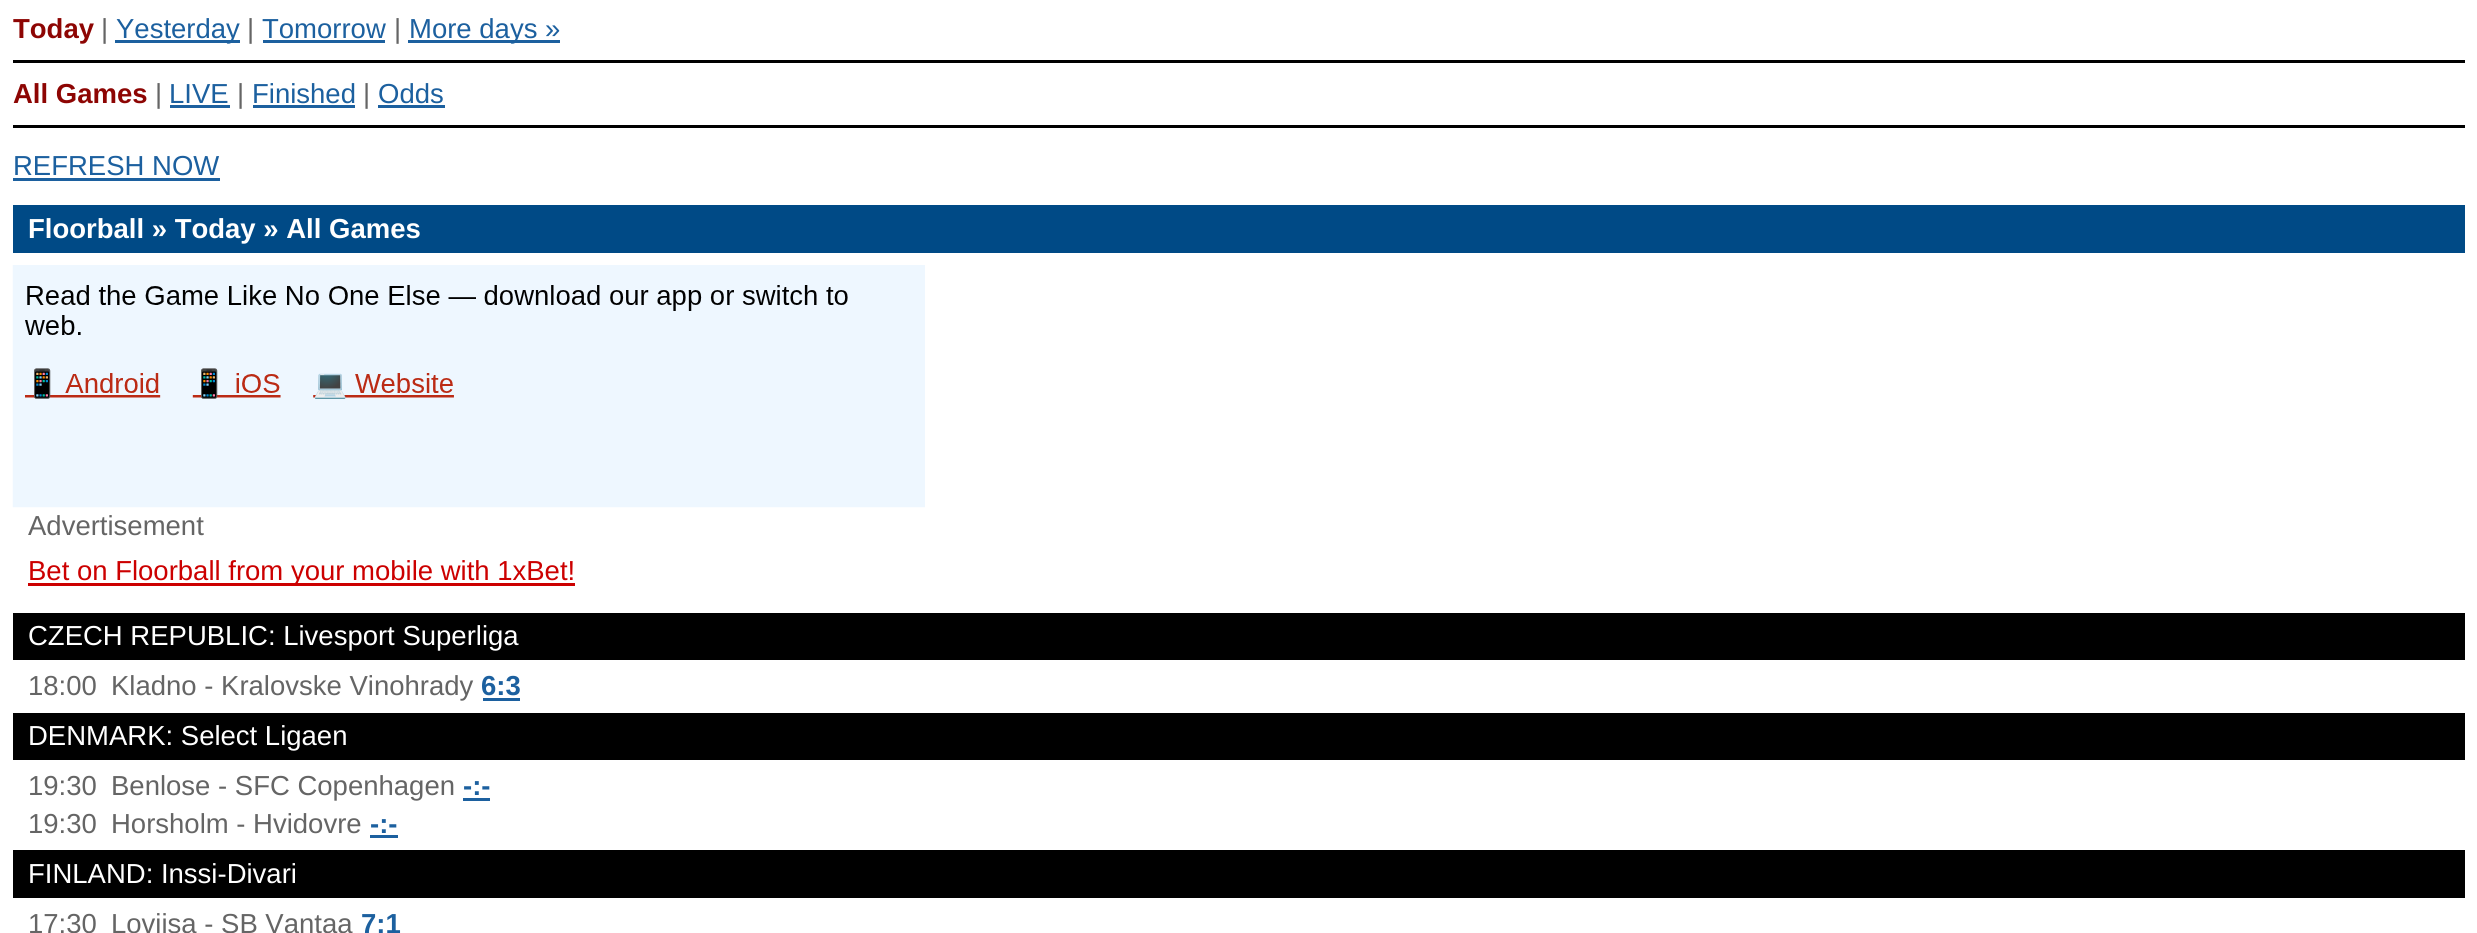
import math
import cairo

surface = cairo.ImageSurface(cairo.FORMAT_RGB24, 2477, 933)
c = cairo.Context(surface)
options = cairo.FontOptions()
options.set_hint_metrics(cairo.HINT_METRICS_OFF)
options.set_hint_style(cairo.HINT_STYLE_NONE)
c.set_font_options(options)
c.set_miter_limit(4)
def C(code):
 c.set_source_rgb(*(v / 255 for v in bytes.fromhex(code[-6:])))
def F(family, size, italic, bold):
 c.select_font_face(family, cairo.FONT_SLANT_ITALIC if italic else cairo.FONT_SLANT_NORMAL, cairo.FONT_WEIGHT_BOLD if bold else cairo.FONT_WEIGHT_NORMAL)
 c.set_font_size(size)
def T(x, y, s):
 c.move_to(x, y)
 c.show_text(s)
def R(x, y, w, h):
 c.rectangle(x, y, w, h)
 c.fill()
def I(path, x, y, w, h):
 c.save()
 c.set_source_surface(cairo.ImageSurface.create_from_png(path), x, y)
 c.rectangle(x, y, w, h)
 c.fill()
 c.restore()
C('ffffff')
c.paint()
C('000000')
R(13,60,2452,3)
F('Liberation Sans',27.5,0,1)
C('8d0503')
T(13,38,'Today')
F('Liberation Sans',27.5,0,0)
C('656565')
T(101,38,'|')
C('1c609f')
R(115,40,125,3)
T(116,38,'Yesterday')
C('656565')
T(247,38,'|')
C('1c609f')
T(262,38,'Tomorrow')
R(263,40,122,3)
C('656565')
T(394,38,'|')
C('1c609f')
R(408,40,152,3)
T(409,38,'More days »')
C('000000')
R(13,125,2452,3)
F('Liberation Sans',27.5,0,1)
C('8d0503')
T(13,103,'All Games')
F('Liberation Sans',27.5,0,0)
C('656565')
T(155,103,'|')
C('1c609f')
T(169,103,'LIVE')
R(170,105,60,3)
C('656565')
T(237,103,'|')
C('1c609f')
T(252,103,'Finished')
R(253,105,102,3)
C('656565')
T(363,103,'|')
C('1c609f')
T(378,103,'Odds')
R(378,105,67,3)
T(13,175,'REFRESH NOW')
R(13,178,207,3)
C('004a86')
R(13,205,2452,48)
F('Liberation Sans',27.5,0,1)
C('ffffff')
T(28,238,'Floorball » Today » All Games')
I('1.png',12,265,913,243)
F('Liberation Sans',27.5,0,0)
C('656565')
T(28,535,'Advertisement')
C('cc0000')
R(28,583,547,3)
T(28,580,'Bet on Floorball from your mobile with 1xBet!')
C('000000')
R(13,613,2452,47)
C('ffffff')
T(28,645,'CZECH REPUBLIC: Livesport Superliga')
C('656565')
T(28,695,'18:00')
T(111,695,'Kladno - Kralovske Vinohrady')
F('Liberation Sans',27.5,0,1)
C('1c609f')
T(481,695,'6:3')
R(483,698,37,3)
C('000000')
R(13,713,2452,47)
F('Liberation Sans',27.5,0,0)
C('ffffff')
T(28,745,'DENMARK: Select Ligaen')
C('656565')
T(28,795,'19:30')
T(111,795,'Benlose - SFC Copenhagen')
F('Liberation Sans',27.5,0,1)
C('1c609f')
T(463,795,'-:-')
R(463,798,27,3)
F('Liberation Sans',27.5,0,0)
C('656565')
T(28,833,'19:30')
T(111,833,'Horsholm - Hvidovre')
F('Liberation Sans',27.5,0,1)
C('1c609f')
T(370,833,'-:-')
R(370,835,28,3)
C('000000')
R(13,850,2452,48)
F('Liberation Sans',27.5,0,0)
C('ffffff')
T(28,883,'FINLAND: Inssi-Divari')
C('656565')
T(28,933,'17:30')
T(111,933,'Loviisa - SB Vantaa')
F('Liberation Sans',27.5,0,1)
C('1c609f')
T(361,933,'7:1')
surface.write_to_png('o.png')
